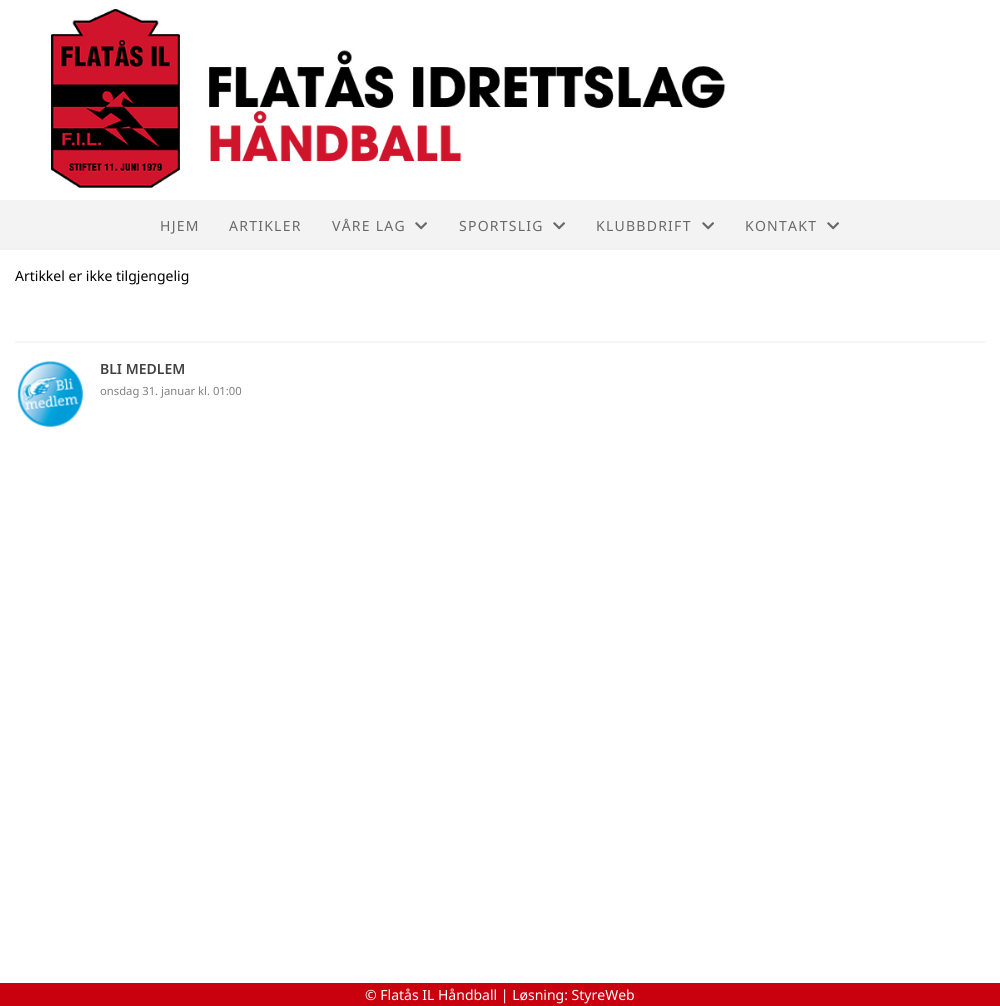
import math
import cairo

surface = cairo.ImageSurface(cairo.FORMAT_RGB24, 1000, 1006)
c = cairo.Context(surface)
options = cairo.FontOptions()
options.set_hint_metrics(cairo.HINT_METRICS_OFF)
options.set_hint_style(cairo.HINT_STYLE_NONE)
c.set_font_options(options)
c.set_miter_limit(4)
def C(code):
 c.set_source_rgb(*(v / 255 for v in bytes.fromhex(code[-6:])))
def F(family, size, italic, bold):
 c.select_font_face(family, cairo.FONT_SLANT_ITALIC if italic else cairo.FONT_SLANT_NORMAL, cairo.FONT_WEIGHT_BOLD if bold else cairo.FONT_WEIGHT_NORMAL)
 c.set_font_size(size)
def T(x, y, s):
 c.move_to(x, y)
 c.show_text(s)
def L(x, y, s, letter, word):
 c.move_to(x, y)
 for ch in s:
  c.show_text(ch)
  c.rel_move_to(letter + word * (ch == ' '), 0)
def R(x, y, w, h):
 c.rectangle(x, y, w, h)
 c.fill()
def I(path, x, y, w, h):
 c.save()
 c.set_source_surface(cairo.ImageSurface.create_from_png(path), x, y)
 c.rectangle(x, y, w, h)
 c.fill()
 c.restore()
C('ffffff')
c.paint()
I('1.png',51,9,675,179)
C('f3f3f3')
R(0,200,1000,50)
F('Noto Sans',14,0,0)
C('696969')
L(160,231,'HJEM',1.25,0)
L(229,231,'ARTIKLER',1.25,0)
L(332,231,'VÅRE LAG',1.25,0)
I('2.png',415,222,12,8)
L(459,231,'SPORTSLIG',1.25,0)
I('2.png',553,222,12,8)
L(596,231,'KLUBBDRIFT',1.25,0)
I('2.png',702,222,12,8)
L(745,231,'KONTAKT',1.25,0)
I('2.png',827,222,12,8)
C('000000')
T(15,281,'Artikkel er ikke tilgjengelig')
C('f5f5f5')
R(15,341,970,2)
I('3.png',17,361,67,66)
F('Noto Sans SemiBold',14,0,0)
C('414141')
T(100,374,'BLI MEDLEM')
F('Noto Sans',11.25,0,0)
C('808080')
T(100,395,'onsdag 31. januar kl. 01:00')
C('c9000d')
R(0,983,1000,23)
F('Noto Sans',14,0,0)
C('ffffff')
T(365,1000,'© Flatås IL Håndball | Løsning: StyreWeb')
surface.write_to_png('o.png')
